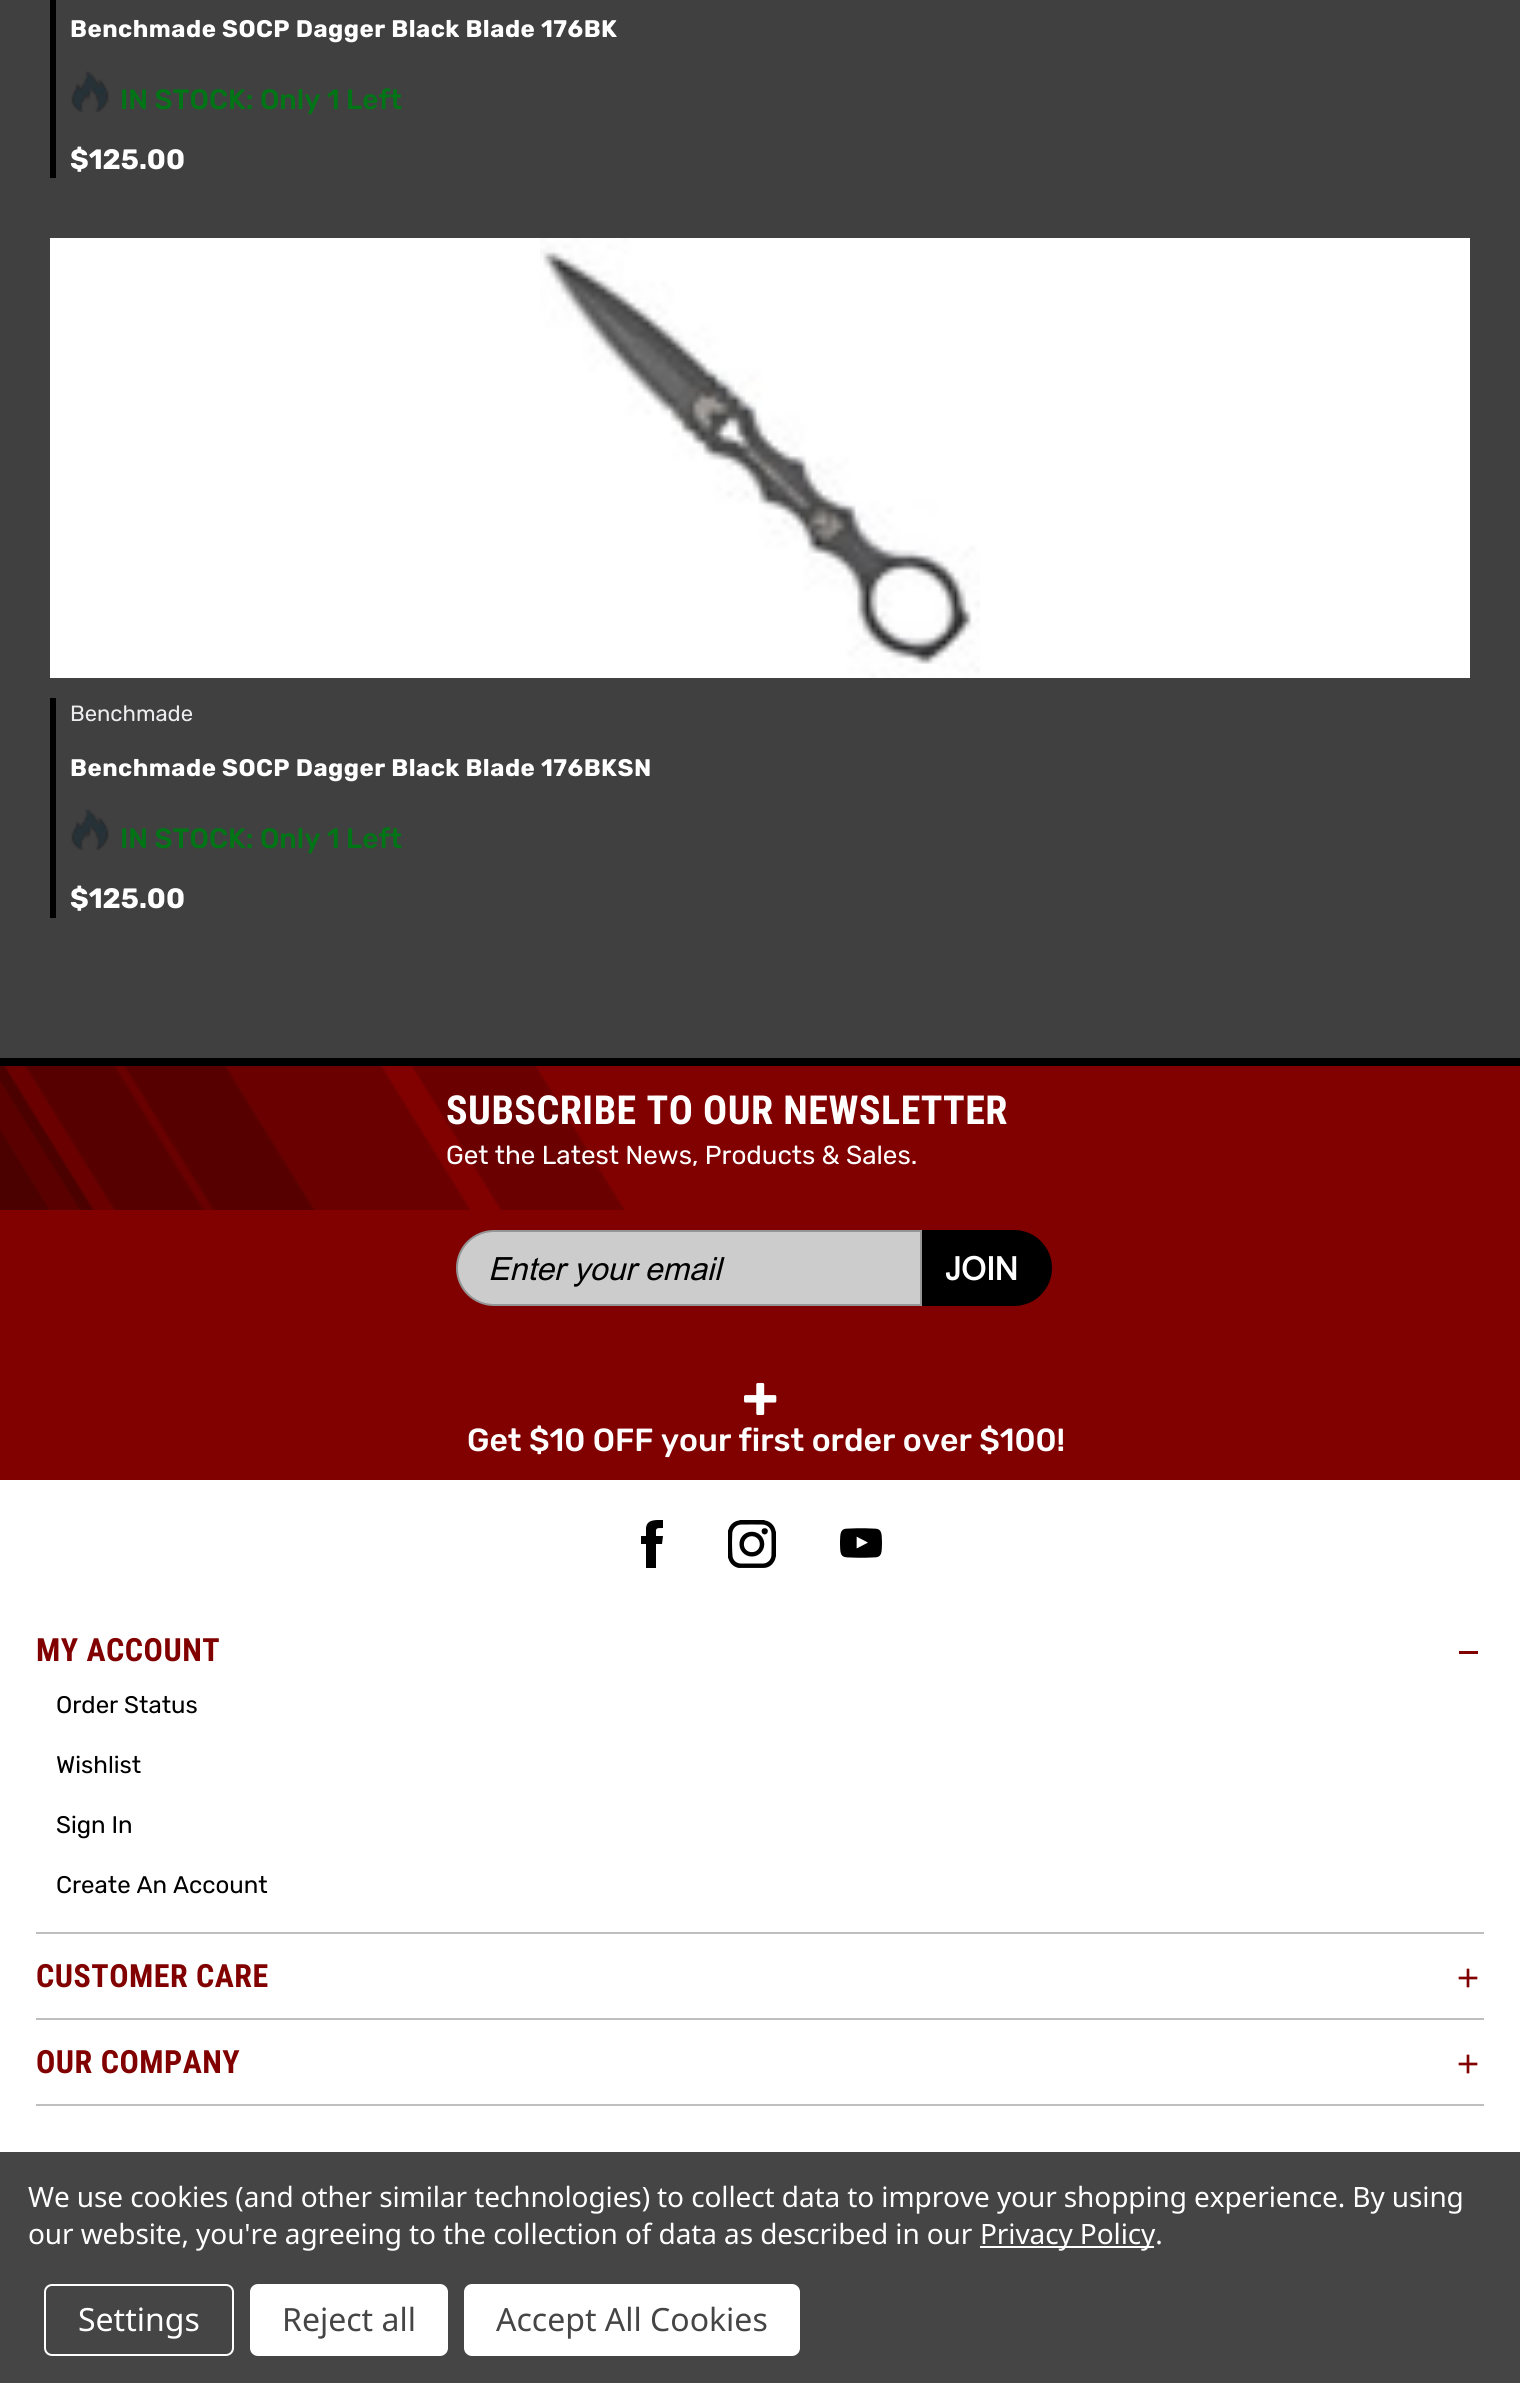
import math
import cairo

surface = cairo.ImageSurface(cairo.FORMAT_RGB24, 1520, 2383)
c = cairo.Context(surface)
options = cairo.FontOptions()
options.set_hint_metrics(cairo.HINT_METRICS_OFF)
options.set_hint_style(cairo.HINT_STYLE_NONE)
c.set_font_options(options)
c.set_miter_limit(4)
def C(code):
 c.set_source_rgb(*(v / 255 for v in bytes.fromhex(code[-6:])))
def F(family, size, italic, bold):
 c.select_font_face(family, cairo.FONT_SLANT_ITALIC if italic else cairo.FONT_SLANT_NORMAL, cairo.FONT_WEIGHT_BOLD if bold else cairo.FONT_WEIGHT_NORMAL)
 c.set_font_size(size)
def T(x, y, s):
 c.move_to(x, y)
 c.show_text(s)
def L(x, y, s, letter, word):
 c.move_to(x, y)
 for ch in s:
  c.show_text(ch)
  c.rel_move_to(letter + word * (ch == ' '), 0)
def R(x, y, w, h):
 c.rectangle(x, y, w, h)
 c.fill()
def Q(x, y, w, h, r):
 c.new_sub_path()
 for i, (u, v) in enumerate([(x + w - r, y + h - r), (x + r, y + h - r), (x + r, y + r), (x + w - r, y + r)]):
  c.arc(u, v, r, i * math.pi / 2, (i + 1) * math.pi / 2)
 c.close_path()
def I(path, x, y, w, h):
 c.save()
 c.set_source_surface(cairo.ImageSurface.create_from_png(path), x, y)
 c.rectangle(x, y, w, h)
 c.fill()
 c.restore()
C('ffffff')
c.paint()
C('404040')
R(0,0,1520,1058)
C('000000')
R(50,0,6,178)
F('Rubik',24,0,1)
C('ffffff')
L(70,37,'Benchmade SOCP Dagger Black Blade 176BK',.5,0)
I('1.png',71,71,38,41)
F('Rubik Medium',28,0,0)
C('007516')
T(120,109,'IN STOCK: Only 1 Left')
F('Rubik',28,0,1)
C('ffffff')
T(70,169,'$125.00')
R(50,238,1420,440)
I('2.png',540,238,440,440)
C('000000')
R(50,698,6,220)
F('Rubik Light',22,0,0)
C('ededf0')
T(70,721,'Benchmade')
F('Rubik',24,0,1)
C('ffffff')
L(70,776,'Benchmade SOCP Dagger Black Blade 176BKSN',.5,0)
I('1.png',71,809,38,41)
F('Rubik Medium',28,0,0)
C('007516')
T(120,848,'IN STOCK: Only 1 Left')
F('Rubik',28,0,1)
C('ffffff')
T(70,908,'$125.00')
C('810100')
R(0,1066,1520,414)
I('3.png',0,1066,625,144)
C('000000')
R(0,1058,1520,8)
F('Roboto Condensed',40,0,1)
C('ffffff')
L(446,1124,'SUBSCRIBE TO OUR NEWSLETTER',.5,0)
F('Rubik Light',26,0,0)
T(446,1164,'Get the Latest News, Products & Sales.')
C('cccccc')
c.new_path()
c.move_to(494,1231)
c.line_to(921,1231)
c.line_to(921,1305)
c.line_to(494,1305)
c.curve_to(473.5,1305,457,1288.5,457,1268)
c.curve_to(457,1247.5,473.5,1231,494,1231)
c.close_path()
c.fill_preserve()
C('949596')
c.stroke()
F('Arial',32,1,0)
C('000000')
T(488,1280,'Enter your email')
c.new_path()
c.move_to(922,1230)
c.line_to(1014,1230)
c.curve_to(1035,1230,1052,1247,1052,1268)
c.curve_to(1052,1289,1035,1306,1014,1306)
c.line_to(922,1306)
c.close_path()
c.fill()
F('Arial',32,0,1)
C('ffffff')
T(945,1280,'JOIN')
F('Rubik',60,0,1)
T(742,1417,'+')
F('Rubik Medium',32,0,0)
T(467,1451,'Get $10 OFF your first order over $100!')
C('000000')
c.new_path()
c.move_to(646,1529)
c.line_to(646,1536)
c.line_to(641,1536)
c.line_to(641,1544)
c.line_to(646,1544)
c.line_to(646,1568)
c.line_to(656,1568)
c.line_to(656,1544)
c.line_to(662,1544)
c.line_to(663,1536)
c.line_to(656,1536)
c.curve_to(656,1528,655,1528,663,1528)
c.line_to(663,1520)
c.curve_to(656,1520,646,1519,646,1529)
c.close_path()
c.fill()
I('4.png',728,1520,48,48)
I('5.png',840,1528,42,30)
C('bfbfbf')
R(36,1932,1448,2)
F('Roboto Condensed',32,0,1)
C('810100')
L(36,1661,'MY ACCOUNT',.5,0)
R(1459,1651,19,3)
F('Rubik Light',24,0,0)
C('000000')
T(56,1713,'Order Status')
T(56,1773,'Wishlist')
T(56,1833,'Sign In')
T(56,1893,'Create An Account')
C('bfbfbf')
R(36,2018,1448,2)
F('Roboto Condensed',32,0,1)
C('810100')
L(36,1987,'CUSTOMER CARE',.5,0)
I('6.png',1458,1968,20,20)
C('bfbfbf')
R(36,2104,1448,2)
C('810100')
L(36,2073,'OUR COMPANY',.5,0)
I('6.png',1458,2054,20,20)
C('454545')
R(0,2152,1520,231)
F('Noto Sans',28,0,0)
C('ffffff')
L(28,2207,'We use cookies (and other similar technologies) to collect data to improve your shopping experience. By using',-.1,0)
L(28,2244,'our website, you\'re agreeing to the collection of data as described in our',-.1,0)
R(980,2246,174,2)
L(980,2244,'Privacy Policy.',-.1,0)
Q(45,2285,188,70,7)
c.stroke()
F('Noto Sans',32,0,0)
T(78,2331,'Settings')
Q(250,2284,198,72,8)
c.fill()
C('454545')
T(282,2331,'Reject all')
C('ffffff')
Q(464,2284,336,72,8)
c.fill()
C('454545')
T(496,2331,'Accept All Cookies')
surface.write_to_png('o.png')
